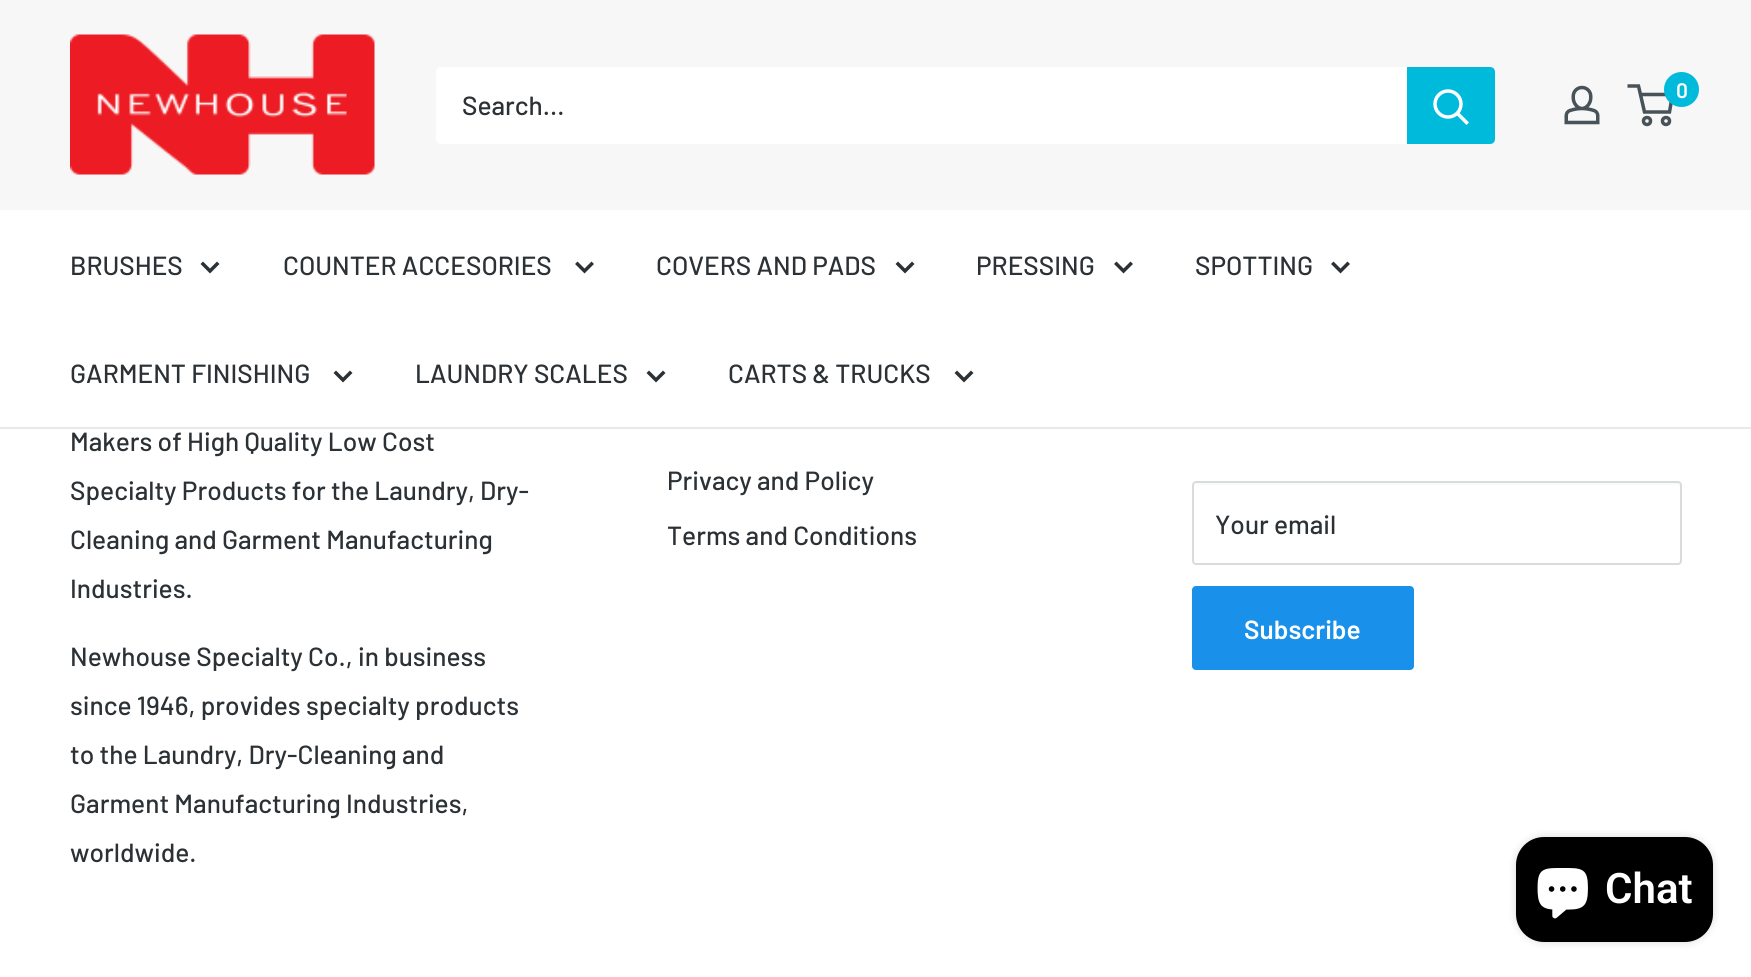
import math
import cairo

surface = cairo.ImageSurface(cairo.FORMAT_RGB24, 1751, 977)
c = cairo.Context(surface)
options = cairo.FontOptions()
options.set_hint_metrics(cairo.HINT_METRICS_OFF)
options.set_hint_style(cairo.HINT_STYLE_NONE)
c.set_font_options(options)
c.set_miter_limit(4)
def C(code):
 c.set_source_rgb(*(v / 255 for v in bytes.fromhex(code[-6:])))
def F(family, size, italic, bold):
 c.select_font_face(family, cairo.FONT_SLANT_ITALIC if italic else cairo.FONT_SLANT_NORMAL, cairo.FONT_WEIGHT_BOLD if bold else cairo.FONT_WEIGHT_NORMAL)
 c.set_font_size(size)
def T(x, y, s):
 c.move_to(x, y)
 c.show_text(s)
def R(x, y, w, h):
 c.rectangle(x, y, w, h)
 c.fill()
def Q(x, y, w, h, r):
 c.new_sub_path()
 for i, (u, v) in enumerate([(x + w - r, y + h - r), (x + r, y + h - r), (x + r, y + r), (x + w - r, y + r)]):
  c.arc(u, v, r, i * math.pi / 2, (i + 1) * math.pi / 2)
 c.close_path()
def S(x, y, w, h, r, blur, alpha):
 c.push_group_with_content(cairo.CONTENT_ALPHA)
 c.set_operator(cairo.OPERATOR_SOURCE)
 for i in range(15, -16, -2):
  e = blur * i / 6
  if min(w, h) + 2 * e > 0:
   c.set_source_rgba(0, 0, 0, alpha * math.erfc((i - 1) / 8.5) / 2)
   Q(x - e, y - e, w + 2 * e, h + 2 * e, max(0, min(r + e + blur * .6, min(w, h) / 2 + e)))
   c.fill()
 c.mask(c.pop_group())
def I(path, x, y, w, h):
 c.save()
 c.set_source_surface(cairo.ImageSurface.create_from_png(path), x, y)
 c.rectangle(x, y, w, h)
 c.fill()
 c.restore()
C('ffffff')
c.paint()
C('f7f7f7')
R(0,0,1751,210)
I('1.png',70,34,305,141)
I('2.png',1564,85,36,40)
c.arc(1647,121,3.5,0,2 * math.pi)
C('485259')
c.set_line_width(3.5)
c.stroke()
c.arc(1666,121,3.5,0,2 * math.pi)
c.stroke()
c.new_path()
c.move_to(1640.5,94.5)
c.line_to(1672.5,94.5)
c.line_to(1669.5,112)
c.line_to(1644.5,112)
c.line_to(1638.5,86)
c.line_to(1627.5,86)
c.stroke()
C('00badb')
c.arc(1681.5,89.5,17.5,0,2 * math.pi)
c.fill()
F('Barlow SemiBold',21,0,0)
C('ffffff')
T(1676,98,'0')
Q(436,67,1059,77,5)
c.fill()
F('Barlow Medium',26.25,0,0)
C('2b3135')
T(462,115,'Search...')
C('00badb')
c.new_path()
c.move_to(1407,67)
c.line_to(1490,67)
c.curve_to(1493,67,1495,69,1495,72)
c.line_to(1495,139)
c.curve_to(1495,142,1493,144,1490,144)
c.line_to(1407,144)
c.close_path()
c.fill()
c.new_path()
c.move_to(1466.5,122.5)
c.line_to(1458,114)
C('ffffff')
c.set_line_cap(cairo.LINE_CAP_SQUARE)
c.stroke()
c.arc(1448,104,13,0,2 * math.pi)
c.set_line_cap(cairo.LINE_CAP_BUTT)
c.stroke()
C('e7e9eb')
R(0,427,1751,2)
C('2b3135')
T(70,275,'BRUSHES')
c.new_path()
c.move_to(217,264)
c.line_to(210,271)
c.line_to(203,264)
c.set_line_cap(cairo.LINE_CAP_SQUARE)
c.stroke()
T(283,275,'COUNTER ACCESORIES')
c.new_path()
c.move_to(591.5,264)
c.line_to(584.5,271)
c.line_to(577.5,264)
c.stroke()
T(656,275,'COVERS AND PADS')
c.new_path()
c.move_to(912,264)
c.line_to(905,271)
c.line_to(898,264)
c.stroke()
T(976,275,'PRESSING')
c.new_path()
c.move_to(1130.5,264)
c.line_to(1123.5,271)
c.line_to(1116.5,264)
c.stroke()
T(1195,275,'SPOTTING')
c.new_path()
c.move_to(1347.5,264)
c.line_to(1340.5,271)
c.line_to(1333.5,264)
c.stroke()
T(70,383,'GARMENT FINISHING')
c.new_path()
c.move_to(350,373)
c.line_to(343,380)
c.line_to(336,373)
c.stroke()
T(415,383,'LAUNDRY SCALES')
c.new_path()
c.move_to(663,373)
c.line_to(656,380)
c.line_to(649,373)
c.stroke()
T(728,383,'CARTS & TRUCKS')
c.new_path()
c.move_to(971,373)
c.line_to(964,380)
c.line_to(957,373)
c.stroke()
T(70,451,'Makers of High Quality Low Cost')
T(70,500,'Specialty Products for the Laundry, Dry-')
T(70,549,'Cleaning and Garment Manufacturing')
T(70,598,'Industries.')
T(70,666,'Newhouse Specialty Co., in business')
T(70,715,'since 1946, provides specialty products')
T(70,764,'to the Laundry, Dry-Cleaning and')
T(70,813,'Garment Manufacturing Industries,')
T(70,862,'worldwide.')
T(667,490,'Privacy and Policy')
T(667,545,'Terms and Conditions')
C('f9fafa')
c.new_path()
c.move_to(1195,485)
c.line_to(1678,485)
c.line_to(1680,486)
c.line_to(1680,484)
c.line_to(1678,483)
c.line_to(1196,483)
c.curve_to(1194,483,1194,485,1194,486)
c.close_path()
c.fill()
Q(1193,482,488,82,3)
C('d9dcdf')
c.set_line_width(2)
c.set_line_cap(cairo.LINE_CAP_BUTT)
c.stroke()
C('2b3135')
T(1215,534,'Your email')
C('1990e9')
Q(1192,586,222,84,4)
c.fill()
F('Barlow SemiBold',26.25,0,0)
C('ffffff')
T(1244,639,'Subscribe')
C('000000')
S(1516,837,197,105,28,4.5,.15)
C('000000')
Q(1516,837,197,105,28)
c.fill()
I('3.png',1537,868,51,51)
F('Roboto SemiBold',42,0,0)
C('ffffff')
T(1605,903,'Chat')
surface.write_to_png('o.png')
